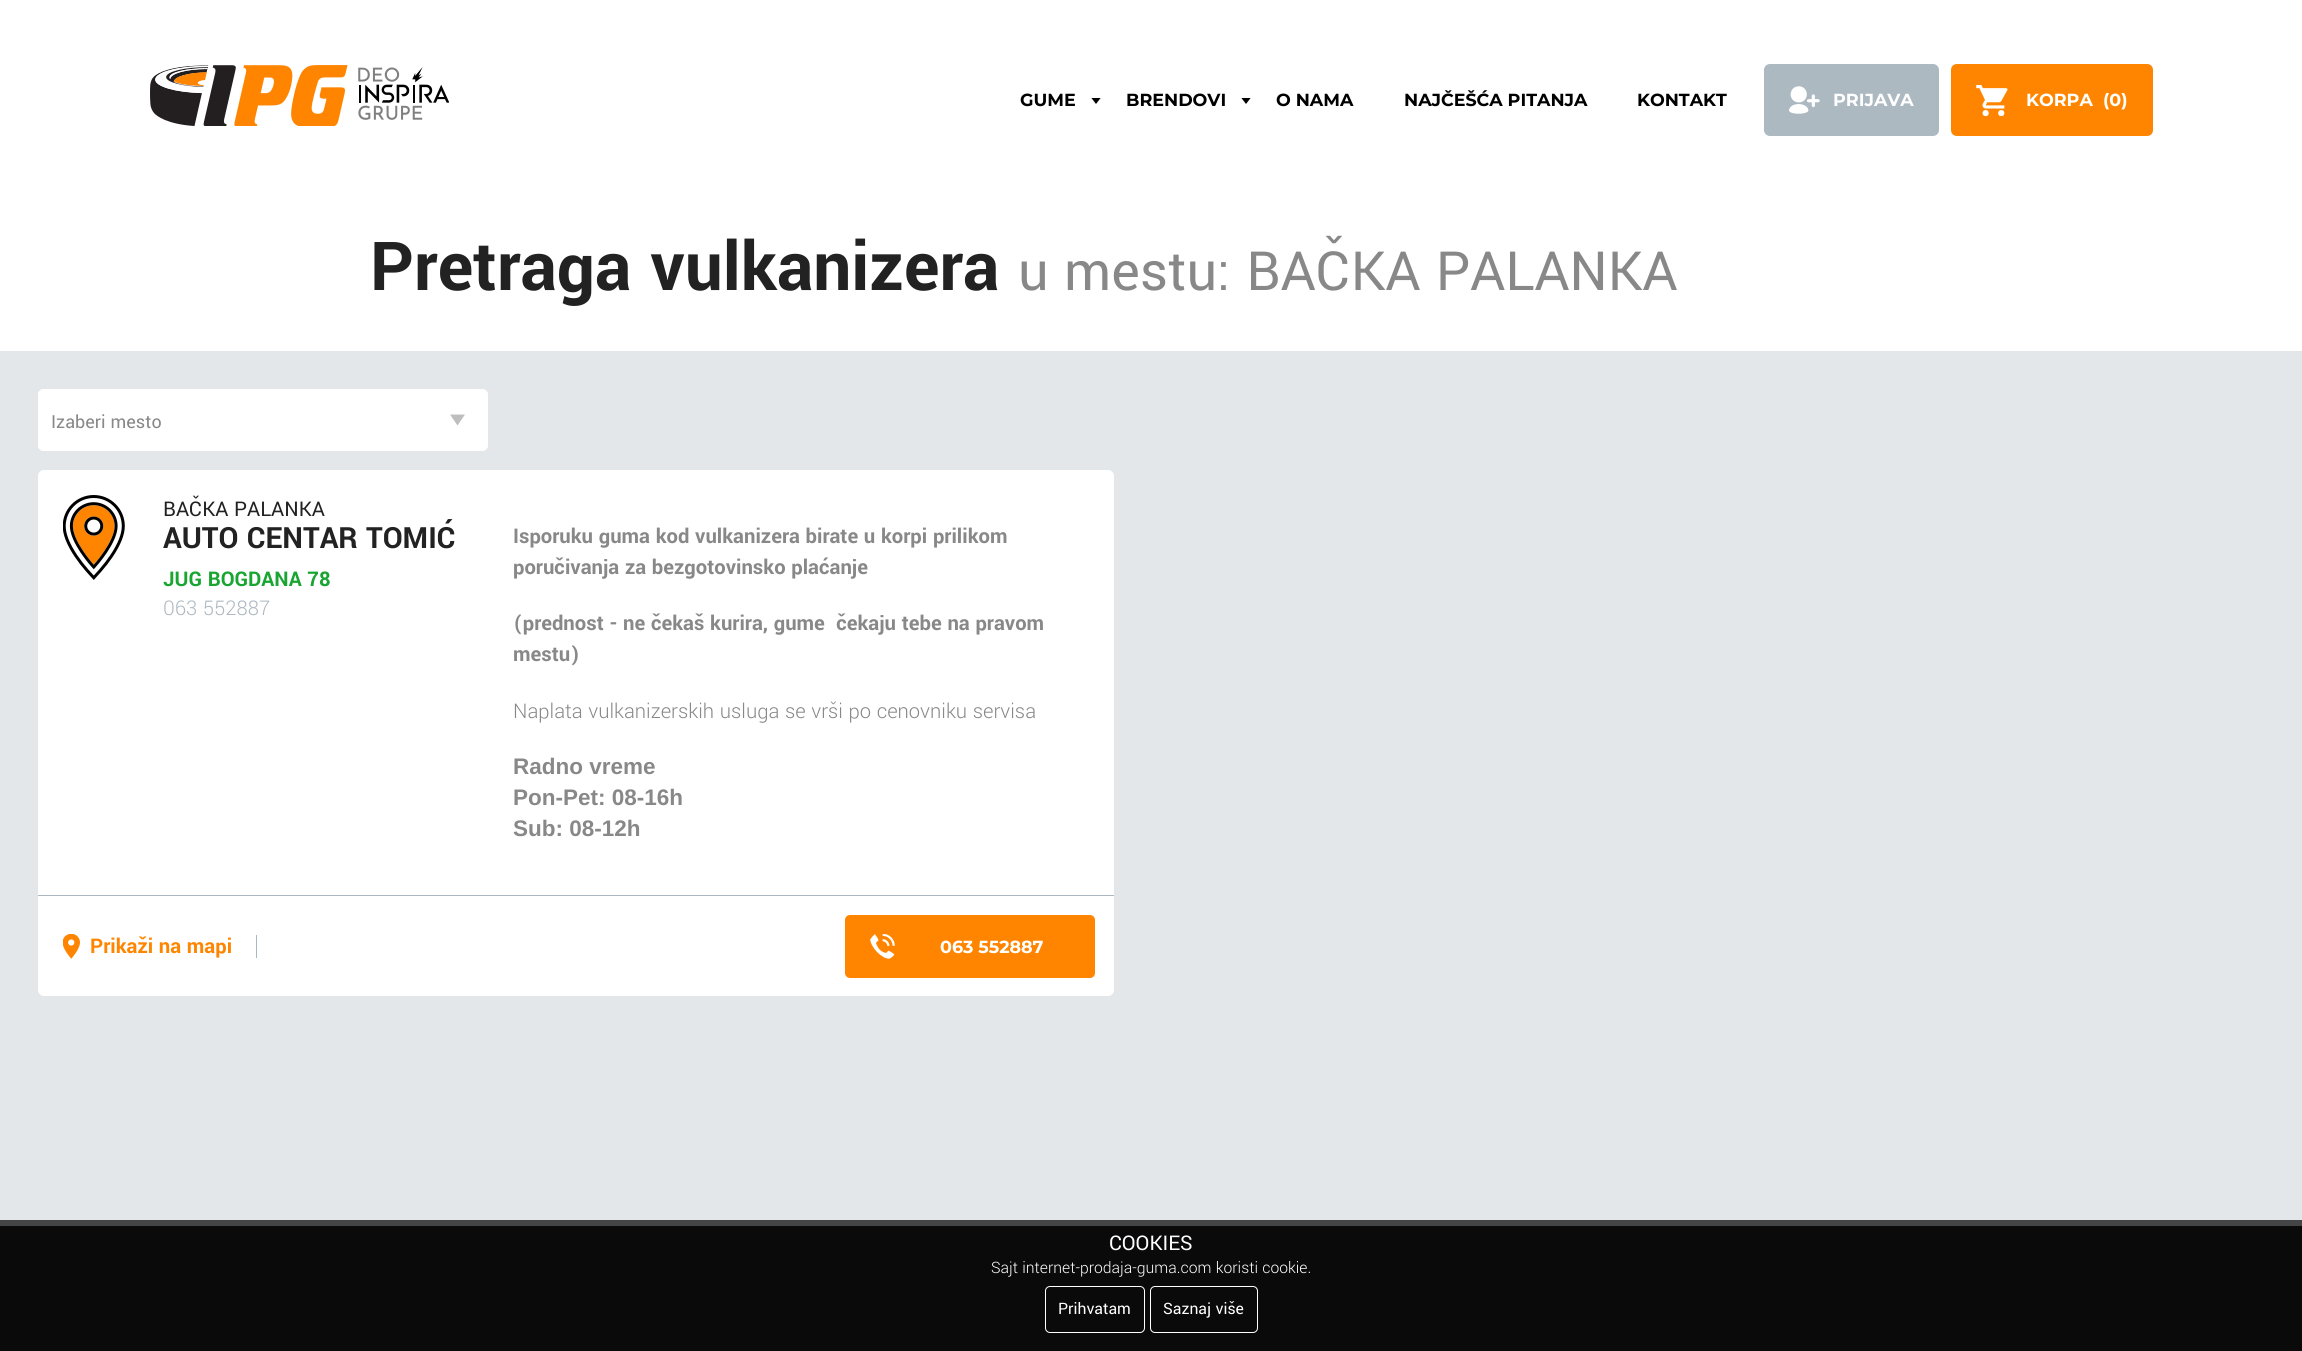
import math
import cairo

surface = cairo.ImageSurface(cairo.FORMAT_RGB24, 2302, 1351)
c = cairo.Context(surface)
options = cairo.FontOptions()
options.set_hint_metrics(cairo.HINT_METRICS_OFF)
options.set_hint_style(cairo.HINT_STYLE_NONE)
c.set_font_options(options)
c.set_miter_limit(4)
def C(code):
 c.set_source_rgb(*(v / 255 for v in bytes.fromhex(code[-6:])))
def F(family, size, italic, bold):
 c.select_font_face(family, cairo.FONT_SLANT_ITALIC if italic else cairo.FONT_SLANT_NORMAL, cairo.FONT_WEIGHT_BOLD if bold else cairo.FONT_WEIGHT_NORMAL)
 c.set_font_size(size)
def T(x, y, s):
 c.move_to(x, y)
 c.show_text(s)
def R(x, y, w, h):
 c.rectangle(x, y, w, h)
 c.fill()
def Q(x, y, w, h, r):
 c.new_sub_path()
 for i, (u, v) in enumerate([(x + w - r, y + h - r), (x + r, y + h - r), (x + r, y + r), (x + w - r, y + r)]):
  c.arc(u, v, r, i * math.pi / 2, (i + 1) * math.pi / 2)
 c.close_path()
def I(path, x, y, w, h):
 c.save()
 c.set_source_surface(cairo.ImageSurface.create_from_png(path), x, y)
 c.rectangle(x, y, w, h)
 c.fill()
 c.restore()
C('e3e7ea')
c.paint()
C('444546')
R(0,1220,2302,6)
C('ffffff')
R(0,0,2302,351)
I('1.png',150,65,198,61)
I('2.png',358,67,91,53)
c.save()
c.rectangle(1091,98,10,6)
c.clip()
C('000000')
c.new_path()
c.move_to(1096,104)
c.line_to(1091,97.5)
c.line_to(1101,97.5)
c.close_path()
c.fill()
c.restore()
F('Montserrat',17.5,0,1)
C('000000')
T(1020,106,'GUME')
c.save()
c.rectangle(1241,98,10,6)
c.clip()
c.new_path()
c.move_to(1246,104)
c.line_to(1241,97.5)
c.line_to(1251,97.5)
c.close_path()
c.fill()
c.restore()
T(1126,106,'BRENDOVI')
T(1276,106,'O NAMA')
T(1404,106,'NAJČEŠĆA PITANJA')
T(1637,106,'KONTAKT')
C('acb9c1')
Q(1764,64,175,72,6)
c.fill()
I('3.png',1789,86,31,28)
C('ffffff')
T(1833,106,'PRIJAVA')
C('ff8500')
c.new_path()
c.move_to(1957,64)
c.line_to(2094,64)
c.line_to(2094,136)
c.line_to(1957,136)
c.curve_to(1953.5,136,1951,133.5,1951,130)
c.line_to(1951,70)
c.curve_to(1951,66.5,1953.5,64,1957,64)
c.close_path()
c.fill()
I('4.png',1976,85,32,31)
C('ffffff')
T(2026,106,'KORPA')
C('ff8500')
R(2094,64,27,72)
c.new_path()
c.move_to(2121,64)
c.line_to(2147,64)
c.curve_to(2150.5,64,2153,66.5,2153,70)
c.line_to(2153,130)
c.curve_to(2153,133.5,2150.5,136,2147,136)
c.line_to(2121,136)
c.close_path()
c.fill()
C('ffffff')
T(2103,106,'(0)')
F('Yantramanav',75,0,1)
C('222222')
T(370,290,'Pretraga vulkanizera')
F('Yantramanav',60,0,0)
C('888888')
T(1018,290,'u mestu: BAČKA PALANKA')
C('ffffff')
Q(38,389,450,62,6)
c.fill()
C('bebebe')
c.new_path()
c.move_to(457.5,425.5)
c.line_to(450,414.5)
c.line_to(465,414.5)
c.close_path()
c.fill()
Q(38.5,389.5,449,61,5.5)
C('ffffff')
c.set_line_width(1)
c.stroke()
F('Yantramanav',20,0,0)
C('888888')
T(51,428,'Izaberi mesto')
C('ffffff')
Q(38,470,1076,526,6)
c.fill()
C('acb8c1')
R(38,895,1076,1)
I('5.png',63,495,62,85)
F('Yantramanav',22.5,0,0)
C('222222')
T(163,516,'BAČKA PALANKA')
F('Yantramanav',32.5,0,1)
T(163,548,'AUTO CENTAR TOMIĆ')
F('Yantramanav',22.5,0,1)
C('19a531')
T(163,586,'JUG BOGDANA 78')
F('Yantramanav Light',22.5,0,0)
C('acb8c1')
T(163,615,'063 552887')
F('Yantramanav',22.5,0,1)
C('888888')
T(513,543,'Isporuku guma kod vulkanizera birate u korpi prilikom')
T(513,574,'poručivanja za bezgotovinsko plaćanje')
T(513,630,'(prednost - ne čekaš kurira, gume  čekaju tebe na pravom')
T(513,661,'mestu)')
F('Yantramanav Light',22.5,0,0)
T(513,718,'Naplata vulkanizerskih usluga se vrši po cenovniku servisa')
F('Liberation Sans',22.5,0,1)
T(513,774,'Radno vreme')
T(513,805,'Pon-Pet: 08-16h')
T(513,836,'Sub: 08-12h')
I('6.png',63,934,17,25)
F('Yantramanav',22.5,0,1)
C('ff8500')
T(90,953,'Prikaži na mapi')
C('acb8c1')
R(256,935,1,23)
C('ff8500')
Q(845,915,250,63,5)
c.fill()
I('7.png',870,934,25,25)
F('Montserrat',17.5,0,1)
C('ffffff')
T(940,953,'063 552887')
C('0a0a0a')
R(0,1226,2302,125)
F('Yantramanav',22.5,0,0)
C('ffffff')
T(1109,1250,'COOKIES')
F('Yantramanav Light',17.5,0,0)
T(991,1273,'Sajt internet-prodaja-guma.com koristi cookie.')
Q(1045.5,1286.5,99,46,4.5)
c.stroke()
F('Yantramanav',17.5,0,0)
T(1058,1314,'Prihvatam')
Q(1150.5,1286.5,107,46,4.5)
c.stroke()
T(1163,1314,'Saznaj više')
surface.write_to_png('o.png')
